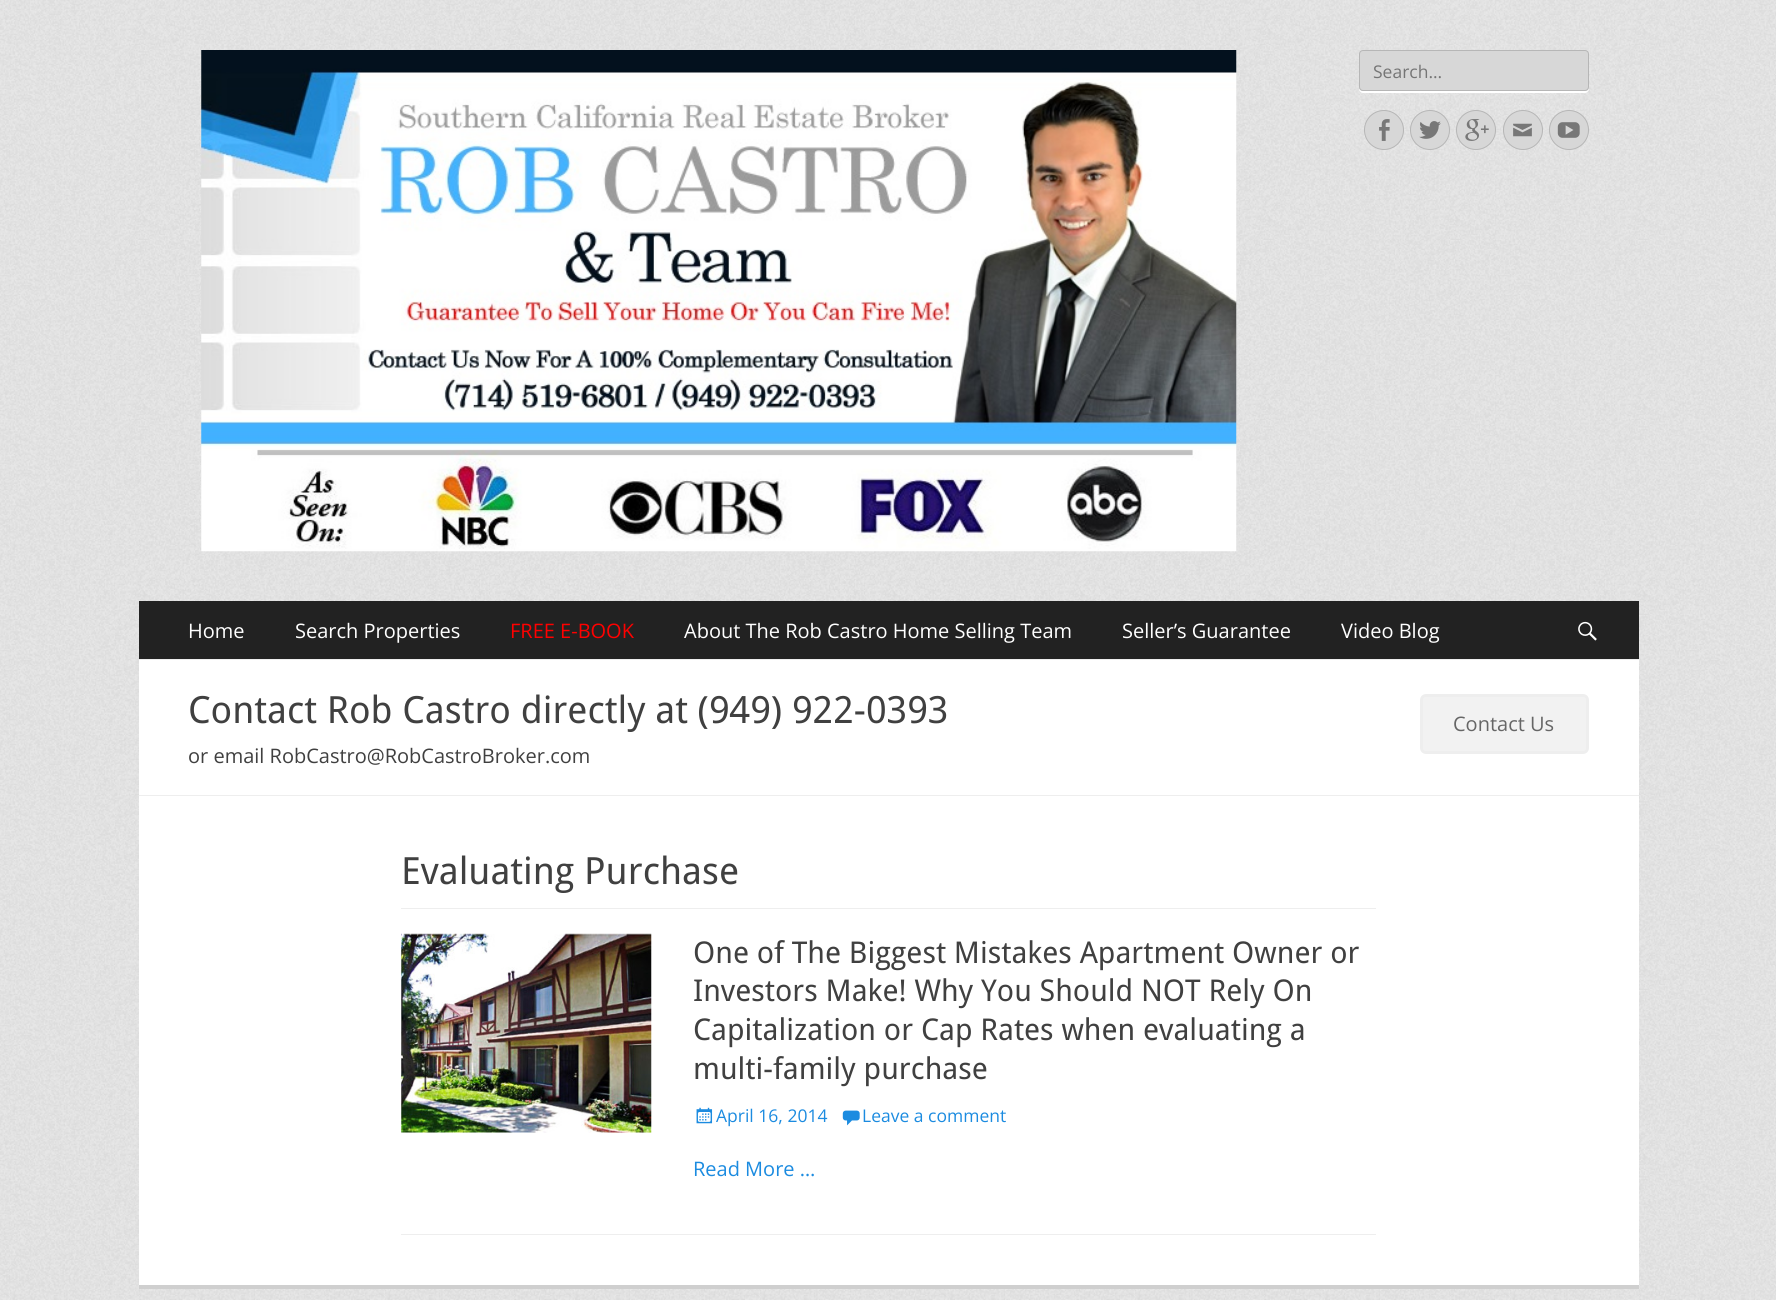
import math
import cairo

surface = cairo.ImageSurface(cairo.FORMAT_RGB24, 1776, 1300)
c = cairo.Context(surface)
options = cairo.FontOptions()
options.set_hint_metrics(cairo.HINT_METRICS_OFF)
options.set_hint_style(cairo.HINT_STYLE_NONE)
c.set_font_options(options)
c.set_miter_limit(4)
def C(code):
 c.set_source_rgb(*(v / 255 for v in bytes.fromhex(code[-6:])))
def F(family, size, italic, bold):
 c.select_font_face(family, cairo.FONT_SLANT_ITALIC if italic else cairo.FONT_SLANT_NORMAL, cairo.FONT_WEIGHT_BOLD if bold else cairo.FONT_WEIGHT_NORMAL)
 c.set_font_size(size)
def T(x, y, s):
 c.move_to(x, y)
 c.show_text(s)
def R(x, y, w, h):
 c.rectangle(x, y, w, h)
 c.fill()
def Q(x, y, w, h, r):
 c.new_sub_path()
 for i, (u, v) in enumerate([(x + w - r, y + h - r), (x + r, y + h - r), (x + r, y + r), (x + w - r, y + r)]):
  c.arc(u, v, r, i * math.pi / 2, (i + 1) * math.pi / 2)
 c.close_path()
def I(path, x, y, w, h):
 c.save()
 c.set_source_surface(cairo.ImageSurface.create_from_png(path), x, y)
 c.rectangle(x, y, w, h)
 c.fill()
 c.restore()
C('ffffff')
c.paint()
I('1.png',0,0,1776,1300)
I('2.png',201,50,1036,502)
C('ffffff')
c.new_path()
c.move_to(1359,89)
c.curve_to(1359,91,1361,93,1363,93)
c.line_to(1585,93)
c.curve_to(1587,93,1589,91,1589,89)
c.line_to(1589,54)
c.line_to(1589,88)
c.curve_to(1589,90,1587,91,1585,91)
c.line_to(1362,91)
c.curve_to(1361,91,1360,90,1359,89)
c.close_path()
c.fill()
C('d7d7d7')
Q(1359.5,50.5,229,40,3.5)
c.fill_preserve()
C('b6b6b6')
c.set_line_width(1)
c.stroke()
F('Open Sans',17.5,0,0)
C('757575')
T(1373,78,'Search...')
C('d7d7d7')
c.new_path()
c.arc(1384,130,19.5,0,2 * math.pi)
c.fill_preserve()
C('b6b6b6')
c.stroke()
I('3.png',1379,119,11,22)
C('d7d7d7')
c.arc(1430,130,19.5,0,2 * math.pi)
c.fill_preserve()
C('b6b6b6')
c.stroke()
I('4.png',1419,121,22,18)
C('d7d7d7')
c.arc(1476,130,19.5,0,2 * math.pi)
c.fill_preserve()
C('b6b6b6')
c.stroke()
I('5.png',1465,119,24,22)
C('d7d7d7')
c.arc(1523,130,19.5,0,2 * math.pi)
c.fill_preserve()
C('b6b6b6')
c.stroke()
I('6.png',1513,123,19,14)
C('d7d7d7')
c.arc(1569,130,19.5,0,2 * math.pi)
c.fill_preserve()
C('b6b6b6')
c.stroke()
I('7.png',1557,122,23,16)
C('222222')
R(139,601,1500,58)
F('Open Sans',20,0,0)
C('ffffff')
T(188,638,'Home')
T(295,638,'Search Properties')
C('ff0000')
T(510,638,'FREE E-BOOK')
C('ffffff')
T(684,638,'About The Rob Castro Home Selling Team')
T(1122,638,'Seller’s Guarantee')
T(1341,638,'Video Blog')
I('8.png',1578,621,19,20)
R(139,660,1500,135)
C('eeeeee')
R(139,659,1500,1)
R(139,795,1500,1)
F('Droid Sans',37.5,0,0)
C('404040')
T(188,723,'Contact Rob Castro directly at (949) 922-0393')
F('Open Sans',20,0,0)
T(188,763,'or email RobCastro@RobCastroBroker.com')
C('f2f2f2')
Q(1421.5,695.5,166,57,4.5)
c.fill_preserve()
C('eeeeee')
c.set_line_width(3)
c.stroke()
C('666666')
T(1453,731,'Contact Us')
C('ffffff')
R(139,796,1500,489)
C('eeeeee')
R(401,908,975,1)
F('Droid Sans',37.5,0,0)
C('404040')
T(401,884,'Evaluating Purchase')
C('eeeeee')
R(401,1234,975,1)
I('9.png',401,933,251,200)
F('Droid Sans',30,0,0)
C('404040')
T(693,963,'One of The Biggest Mistakes Apartment Owner or')
T(693,1001,'Investors Make! Why You Should NOT Rely On')
T(693,1040,'Capitalization or Cap Rates when evaluating a')
T(693,1079,'multi-family purchase')
I('10.png',696,1107,17,17)
F('Open Sans',17.5,0,0)
C('1b8be0')
T(716,1122,'April 16, 2014')
I('11.png',842,1110,18,16)
T(862,1122,'Leave a comment')
F('Open Sans',20,0,0)
T(693,1176,'Read More …')
C('cfcfcf')
R(139,1285,1500,4)
surface.write_to_png('o.png')
